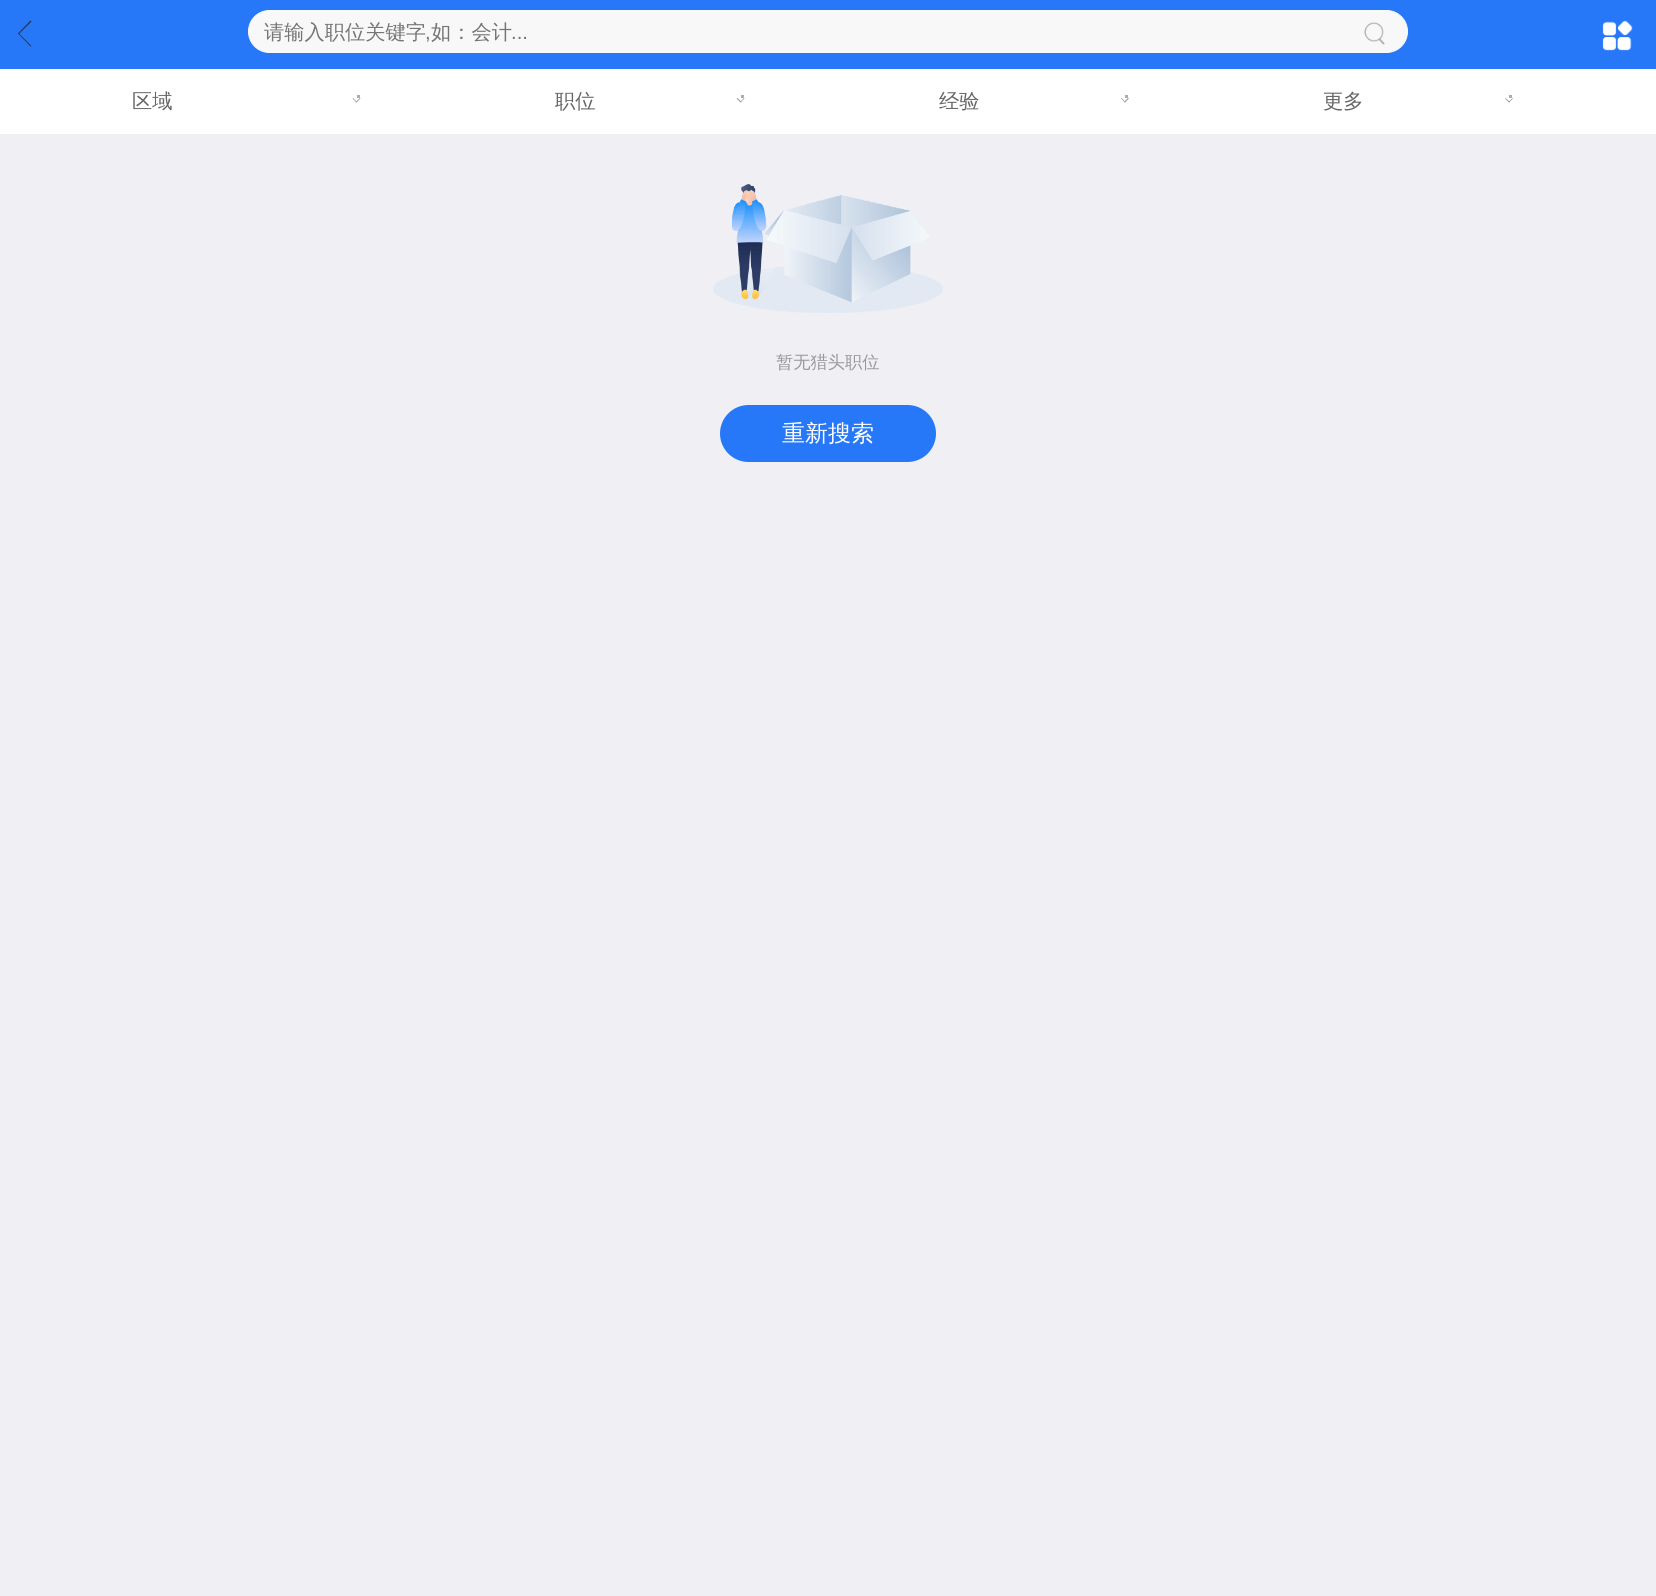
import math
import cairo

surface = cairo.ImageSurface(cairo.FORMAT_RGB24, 1656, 1596)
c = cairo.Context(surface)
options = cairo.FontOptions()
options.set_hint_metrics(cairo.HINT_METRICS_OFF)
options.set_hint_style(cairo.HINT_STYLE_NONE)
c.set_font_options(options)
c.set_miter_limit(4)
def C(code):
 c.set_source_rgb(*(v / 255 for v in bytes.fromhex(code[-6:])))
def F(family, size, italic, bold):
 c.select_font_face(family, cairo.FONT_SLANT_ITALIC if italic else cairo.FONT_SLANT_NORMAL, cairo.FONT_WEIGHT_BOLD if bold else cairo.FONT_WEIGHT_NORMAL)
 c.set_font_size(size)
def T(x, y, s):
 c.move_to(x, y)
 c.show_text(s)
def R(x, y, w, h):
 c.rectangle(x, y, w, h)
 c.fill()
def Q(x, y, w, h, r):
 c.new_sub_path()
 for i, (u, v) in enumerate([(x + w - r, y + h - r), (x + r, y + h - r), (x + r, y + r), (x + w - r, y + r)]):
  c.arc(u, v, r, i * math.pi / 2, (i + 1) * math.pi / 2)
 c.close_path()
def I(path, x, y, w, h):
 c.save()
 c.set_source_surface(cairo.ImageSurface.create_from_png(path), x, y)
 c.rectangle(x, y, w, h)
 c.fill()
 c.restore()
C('efeff4')
c.paint()
C('2778f8')
R(0,0,1656,69)
C('333333')
c.new_path()
c.move_to(30.5,46.5)
c.line_to(18,33.5)
c.line_to(18.5,33)
c.line_to(31.5,46)
c.close_path()
c.fill()
c.new_path()
c.move_to(18.5,34.5)
c.line_to(18,33.5)
c.line_to(30.5,20.5)
c.line_to(31.5,21.5)
c.close_path()
c.fill()
C('f8f8f8')
Q(248.5,10.5,1159,42,21)
c.fill_preserve()
c.set_line_width(1)
c.stroke()
F('WenQuanYi Zen Hei Medium',20.25,0,0)
C('757575')
T(264,39,'请输入职位关键字')
F('Liberation Sans',20.25,0,0)
T(425,39,',')
F('WenQuanYi Zen Hei Medium',20.25,0,0)
T(431,39,'如：会计')
F('Liberation Sans',20.25,0,0)
T(511,39,'...')
I('1.png',1364,22,21,23)
I('2.png',1602,20,31,31)
C('ffffff')
R(0,69,1656,65)
F('WenQuanYi Zen Hei Medium',20.25,0,0)
C('666666')
T(132,108,'区域')
C('adadad')
R(357,95,3,3)
C('989898')
c.new_path()
c.move_to(356.5,102.5)
c.line_to(352.5,98.5)
c.line_to(353,98)
c.line_to(357,102)
c.close_path()
c.fill()
c.new_path()
c.move_to(356.5,102.5)
c.line_to(355.5,102)
c.line_to(360,98)
c.line_to(360.5,98.5)
c.close_path()
c.fill()
C('666666')
T(555,108,'职位')
C('adadad')
R(741,95,3,3)
C('989898')
c.new_path()
c.move_to(740.5,102.5)
c.line_to(736.5,98.5)
c.line_to(737.5,98)
c.line_to(741.5,102)
c.close_path()
c.fill()
c.new_path()
c.move_to(740.5,102.5)
c.line_to(740,102)
c.line_to(744,98)
c.line_to(744.5,98.5)
c.close_path()
c.fill()
C('666666')
T(939,108,'经验')
C('adadad')
R(1125,95,3,3)
C('989898')
c.new_path()
c.move_to(1125,102.5)
c.line_to(1121,98.5)
c.line_to(1121.5,98)
c.line_to(1125.5,102)
c.close_path()
c.fill()
c.new_path()
c.move_to(1125,102.5)
c.line_to(1124,102)
c.line_to(1128,98)
c.line_to(1129,98.5)
c.close_path()
c.fill()
C('666666')
T(1323,108,'更多')
C('adadad')
R(1509,95,3,3)
C('989898')
c.new_path()
c.move_to(1509,102.5)
c.line_to(1505,98.5)
c.line_to(1505.5,98)
c.line_to(1510,102)
c.close_path()
c.fill()
c.new_path()
c.move_to(1509,102.5)
c.line_to(1508.5,102)
c.line_to(1512.5,98)
c.line_to(1513,98.5)
c.close_path()
c.fill()
I('3.png',713,184,230,129)
F('WenQuanYi Zen Hei Medium',17.25,0,0)
C('999999')
T(776,368,'暂无猎头职位')
C('2778f8')
Q(720,405,216,57,28.5)
c.fill()
F('WenQuanYi Zen Hei Medium',23,0,0)
C('ffffff')
T(782,441,'重新搜索')
surface.write_to_png('o.png')
